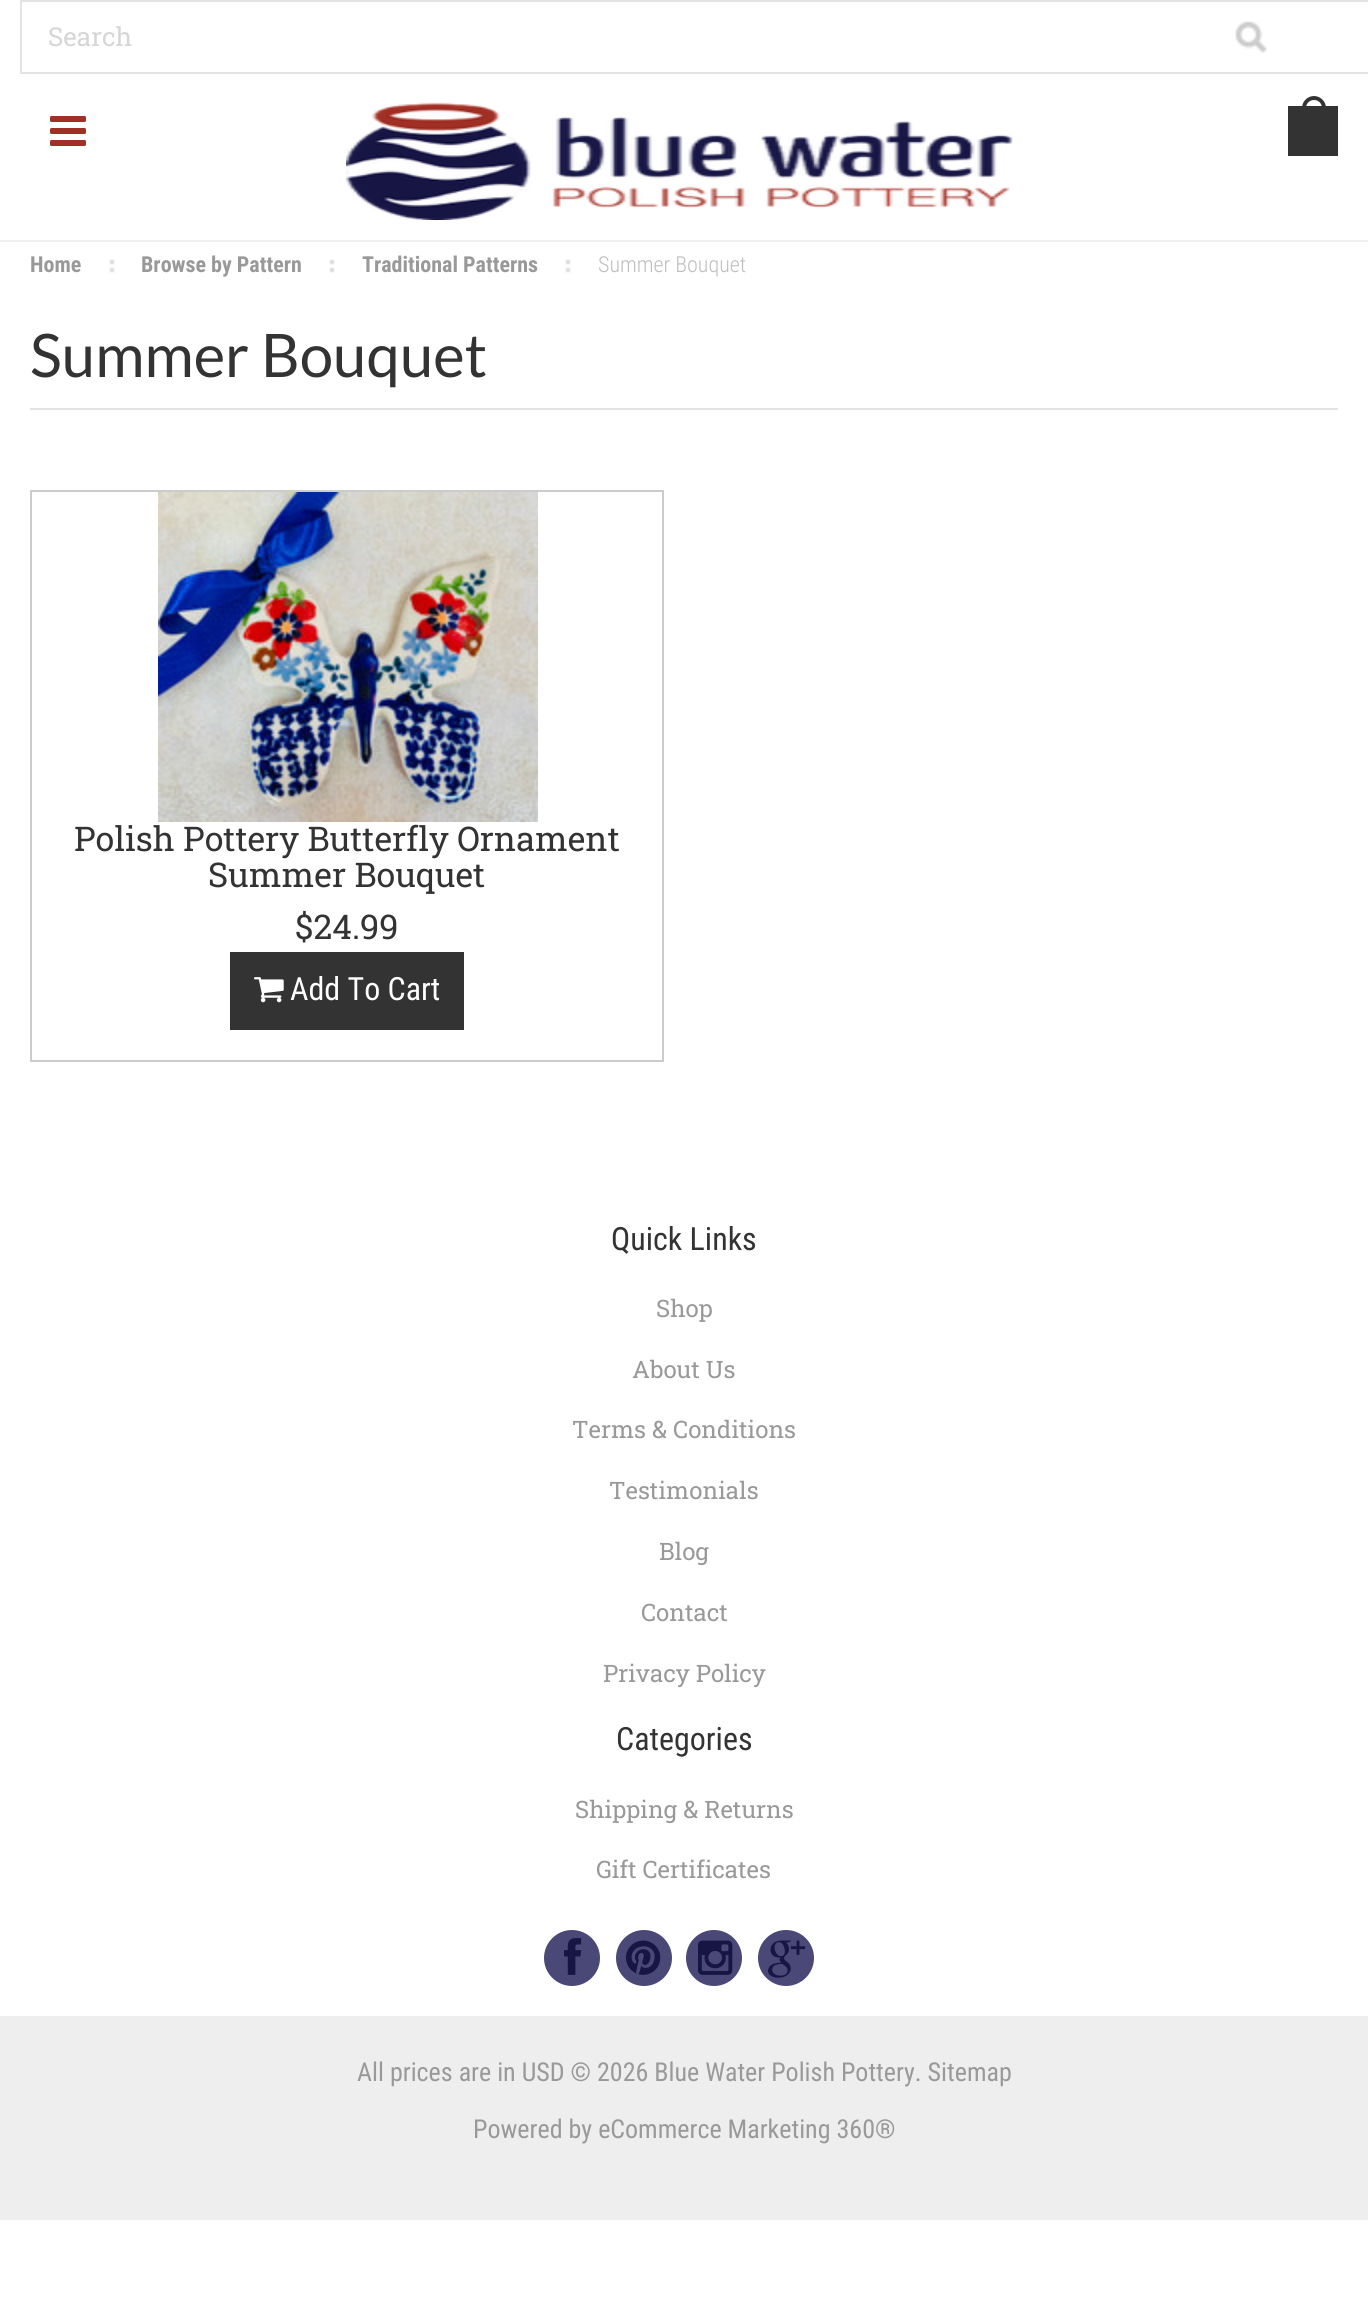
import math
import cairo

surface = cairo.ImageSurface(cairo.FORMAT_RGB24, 1368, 2308)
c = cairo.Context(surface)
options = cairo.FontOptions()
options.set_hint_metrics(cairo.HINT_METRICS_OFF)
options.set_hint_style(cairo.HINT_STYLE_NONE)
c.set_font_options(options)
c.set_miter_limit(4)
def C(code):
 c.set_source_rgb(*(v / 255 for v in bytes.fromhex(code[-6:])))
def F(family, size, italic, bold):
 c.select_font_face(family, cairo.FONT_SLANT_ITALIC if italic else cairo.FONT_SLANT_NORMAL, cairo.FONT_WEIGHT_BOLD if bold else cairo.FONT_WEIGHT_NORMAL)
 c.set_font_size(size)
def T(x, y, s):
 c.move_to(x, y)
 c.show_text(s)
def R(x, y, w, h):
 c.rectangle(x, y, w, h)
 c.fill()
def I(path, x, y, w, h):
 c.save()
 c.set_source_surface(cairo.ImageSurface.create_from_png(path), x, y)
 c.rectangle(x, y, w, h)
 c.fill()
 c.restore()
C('ffffff')
c.paint()
C('efefef')
R(0,240,1368,2)
c.rectangle(21,1,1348,72)
C('e3e3e3')
c.stroke()
F('Roboto Slab',26,0,0)
C('d6d6d6')
T(48,46,'Search')
I('1.png',1235,21,32,32)
I('2.png',50,116,36,30)
I('3.png',346,102,667,118)
C('333333')
R(1288,106,50,50)
c.set_fill_rule(cairo.FILL_RULE_EVEN_ODD)
c.new_path()
c.move_to(1314,96)
c.curve_to(1320.5,96,1326,101.5,1326,108)
c.line_to(1302,108)
c.curve_to(1302,101.5,1307.5,96,1314,96)
c.close_path()
c.move_to(1314,100)
c.curve_to(1318.5,100,1322,103.5,1322,108)
c.line_to(1306,108)
c.curve_to(1306,103.5,1309.5,100,1314,100)
c.close_path()
c.fill()
I('4.png',109,259,6,14)
F('Roboto Condensed',22,0,1)
C('999999')
T(30,272,'Home')
I('4.png',329,259,6,14)
T(141,272,'Browse by Pattern')
I('4.png',565,259,6,14)
T(362,272,'Traditional Patterns')
F('Roboto Condensed Light',22,0,0)
C('bebebe')
T(598,272,'Summer Bouquet')
C('e3e3e3')
R(30,408,1308,2)
F('Lato',60,0,0)
C('333333')
T(30,377,'Summer Bouquet')
c.rectangle(31,491,632,570)
C('cccccc')
c.stroke()
I('5.png',158,492,380,330)
F('Roboto Slab',34,0,0)
C('333333')
T(74,851,'Polish Pottery Butterfly Ornament')
T(208,887,'Summer Bouquet')
T(295,939,'$24.99')
R(230,952,234,78)
I('6.png',254,977,30,26)
F('Roboto Condensed',32,0,0)
C('ffffff')
T(290,1000,'Add To Cart')
C('333333')
T(611,1250,'Quick Links')
F('Roboto Slab',24,0,0)
C('999999')
T(656,1317,'Shop')
T(632,1378,'About Us')
T(572,1438,'Terms & Conditions')
T(609,1499,'Testimonials')
T(659,1560,'Blog')
T(641,1621,'Contact')
T(603,1682,'Privacy Policy')
F('Roboto Condensed',32,0,0)
C('333333')
T(616,1750,'Categories')
F('Roboto Slab',24,0,0)
C('999999')
T(575,1818,'Shipping & Returns')
T(596,1878,'Gift Certificates')
C('4a4877')
c.new_path()
c.arc(572,1958,28,0,2 * math.pi)
c.fill()
I('7.png',564,1938,18,37)
c.arc(644,1958,28,0,2 * math.pi)
c.fill()
I('8.png',626,1940,35,35)
c.arc(714,1958,28,0,2 * math.pi)
c.fill()
I('9.png',698,1940,35,35)
c.arc(786,1958,28,0,2 * math.pi)
c.fill()
I('10.png',768,1940,38,38)
C('eeeeee')
R(0,2016,1368,204)
F('Roboto Condensed',26,0,0)
C('999999')
T(357,2081,'All prices are in USD © 2026 Blue Water Polish Pottery. Sitemap')
T(473,2138,'Powered by eCommerce Marketing 360®')
surface.write_to_png('o.png')
